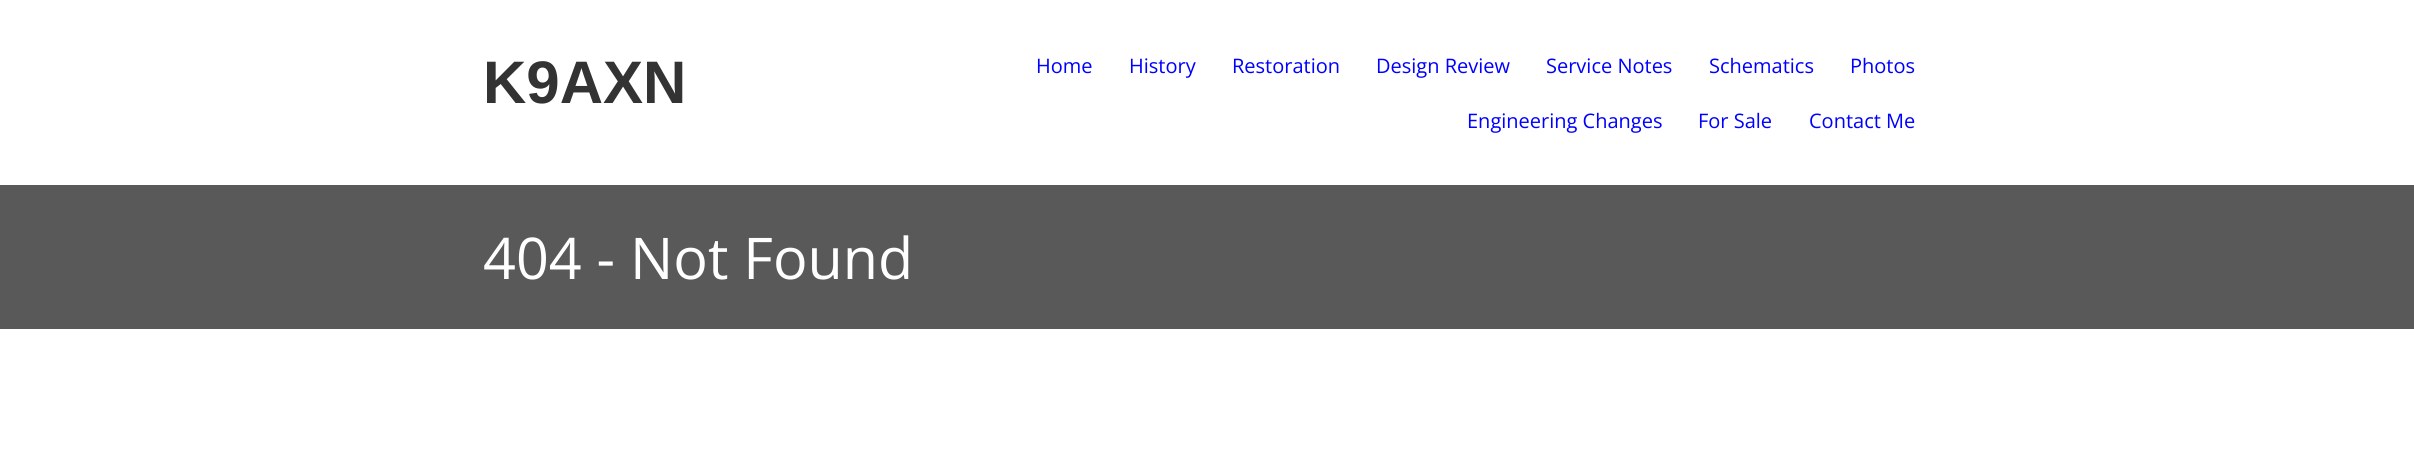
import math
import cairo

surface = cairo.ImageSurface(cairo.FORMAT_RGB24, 2414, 458)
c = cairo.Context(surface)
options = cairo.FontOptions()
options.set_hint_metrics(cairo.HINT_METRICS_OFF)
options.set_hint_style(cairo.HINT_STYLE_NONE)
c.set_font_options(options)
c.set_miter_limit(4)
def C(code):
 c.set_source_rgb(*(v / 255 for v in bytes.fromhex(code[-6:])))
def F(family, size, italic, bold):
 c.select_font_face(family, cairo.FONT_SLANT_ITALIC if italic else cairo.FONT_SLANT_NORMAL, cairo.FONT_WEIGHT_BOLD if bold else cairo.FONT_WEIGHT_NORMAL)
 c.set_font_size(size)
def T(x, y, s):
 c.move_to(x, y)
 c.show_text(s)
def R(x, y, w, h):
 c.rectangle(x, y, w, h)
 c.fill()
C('ffffff')
c.paint()
F('Liberation Sans',60,0,1)
C('333333')
T(483,103,'K9AXN')
F('Open Sans',20,0,0)
C('0000ff')
T(1036,73,'Home')
T(1129,73,'History')
T(1232,73,'Restoration')
T(1376,73,'Design Review')
T(1546,73,'Service Notes')
T(1709,73,'Schematics')
T(1850,73,'Photos')
T(1467,128,'Engineering Changes')
T(1698,128,'For Sale')
T(1809,128,'Contact Me')
C('595959')
R(0,185,2414,144)
F('Open Sans',57.5,0,0)
C('ffffff')
T(483,279,'404 - Not Found')
surface.write_to_png('o.png')
